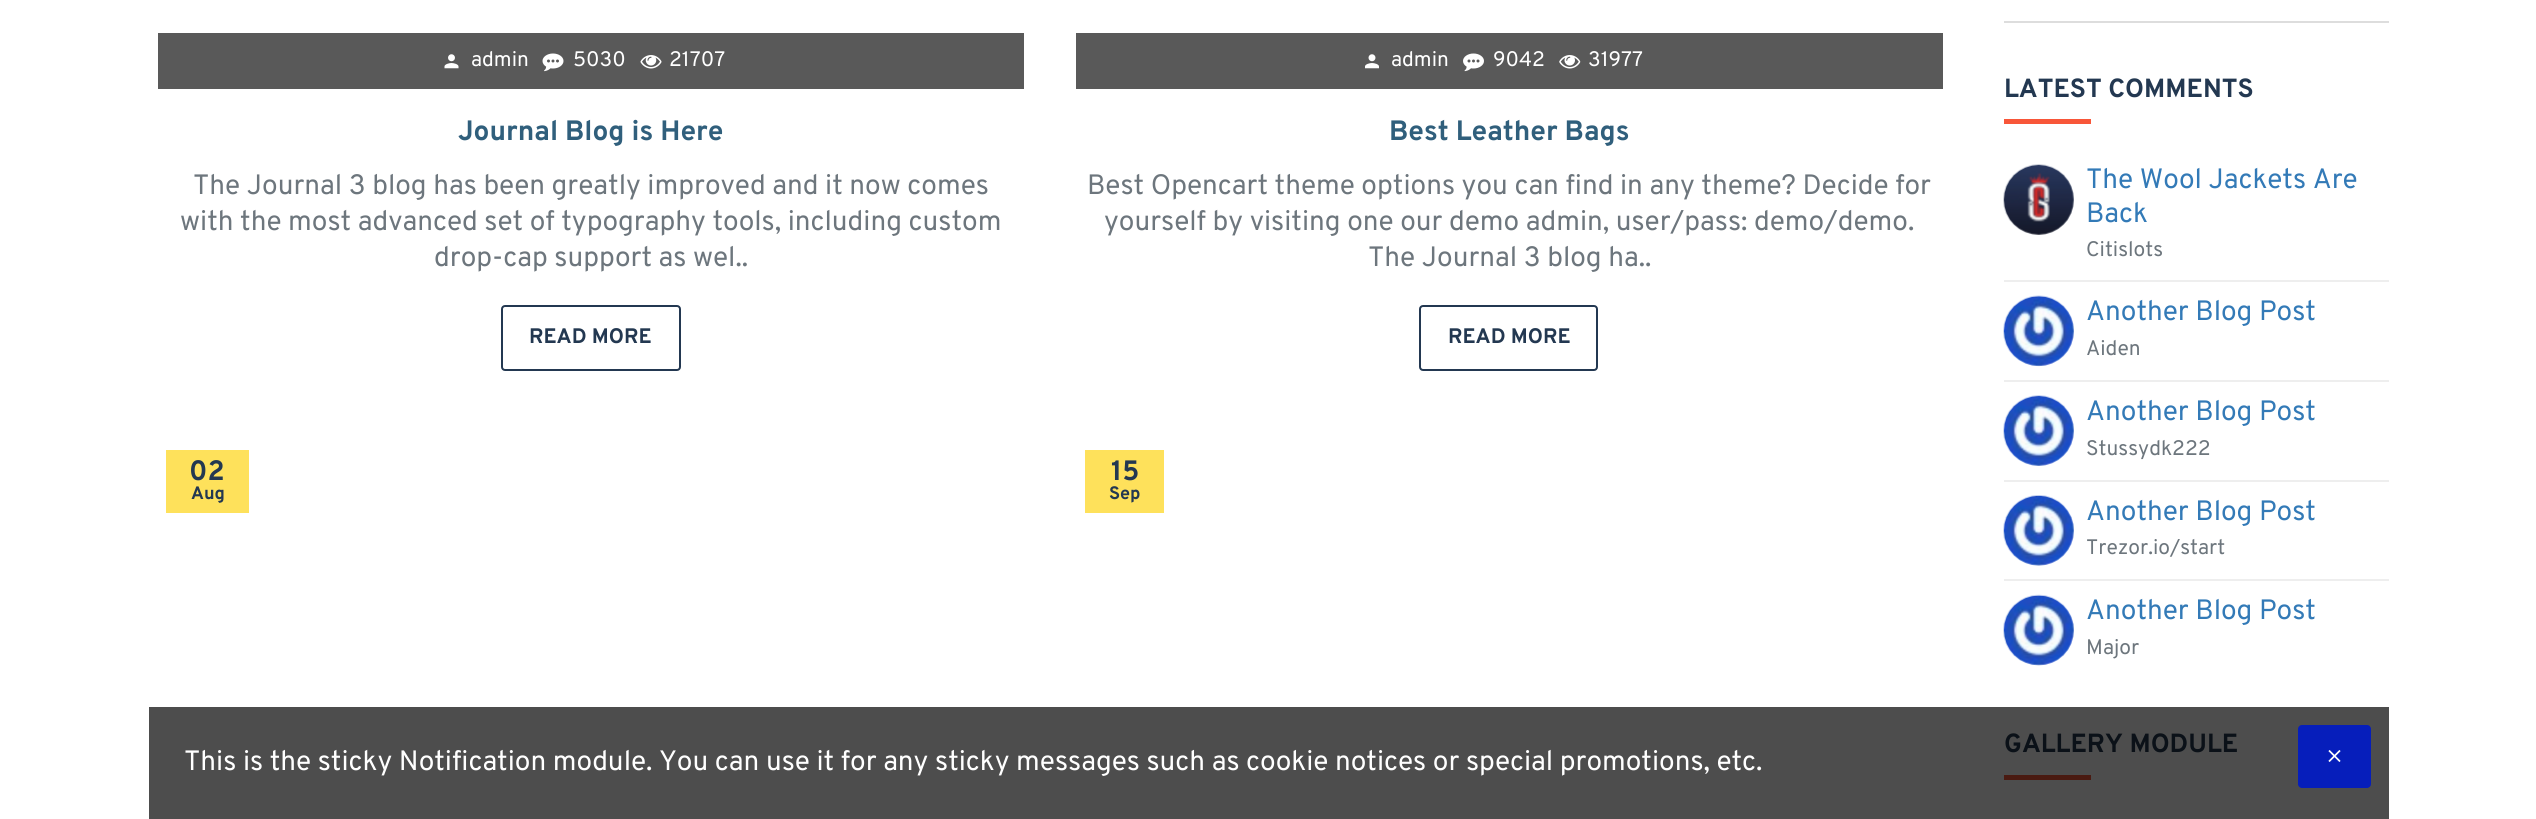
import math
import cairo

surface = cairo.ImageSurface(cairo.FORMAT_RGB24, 2536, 819)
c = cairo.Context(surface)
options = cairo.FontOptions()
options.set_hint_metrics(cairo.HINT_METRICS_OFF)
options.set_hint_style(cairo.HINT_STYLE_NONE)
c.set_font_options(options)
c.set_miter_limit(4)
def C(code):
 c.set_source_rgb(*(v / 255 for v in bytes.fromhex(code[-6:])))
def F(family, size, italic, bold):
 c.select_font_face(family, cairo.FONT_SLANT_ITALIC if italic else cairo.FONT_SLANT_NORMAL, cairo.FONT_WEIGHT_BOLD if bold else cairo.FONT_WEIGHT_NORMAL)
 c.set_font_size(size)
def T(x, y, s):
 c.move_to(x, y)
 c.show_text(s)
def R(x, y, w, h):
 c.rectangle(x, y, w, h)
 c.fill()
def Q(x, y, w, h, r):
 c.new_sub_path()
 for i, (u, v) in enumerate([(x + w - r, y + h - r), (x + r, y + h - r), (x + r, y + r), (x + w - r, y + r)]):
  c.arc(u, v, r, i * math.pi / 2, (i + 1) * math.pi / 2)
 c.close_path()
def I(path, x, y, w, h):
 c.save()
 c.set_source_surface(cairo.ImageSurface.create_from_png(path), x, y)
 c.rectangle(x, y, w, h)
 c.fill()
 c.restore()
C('ffffff')
c.paint()
C('4d4d4d')
R(149,707,2240,112)
C('595959')
R(158,33,866,56)
I('1.png',444,54,15,15)
F('Overpass',21,0,0)
C('ffffff')
T(471,66,'admin')
I('2.png',542,53,22,19)
T(573,66,'5030')
I('3.png',640,55,22,14)
T(669,66,'21707')
F('Overpass',28,0,1)
C('305f7c')
T(458,140,'Journal Blog is Here')
F('Overpass',28,0,0)
C('6d767d')
T(193,194,'The Journal 3 blog has been greatly improved and it now comes')
T(180,230,'with the most advanced set of typography tools, including custom')
T(434,266,'drop-cap support as wel..')
Q(502,306,178,64,3)
C('233851')
c.stroke()
F('Overpass',21,0,1)
T(529,343,'READ MORE')
C('595959')
R(1076,33,867,56)
I('4.png',1365,54,14,15)
F('Overpass',21,0,0)
C('ffffff')
T(1391,66,'admin')
I('5.png',1463,53,21,19)
T(1493,66,'9042')
I('6.png',1559,55,22,14)
T(1588,66,'31977')
F('Overpass',28,0,1)
C('305f7c')
T(1389,140,'Best Leather Bags')
F('Overpass',28,0,0)
C('6d767d')
T(1087,194,'Best Opencart theme options you can find in any theme? Decide for')
T(1104,230,'yourself by visiting one our demo admin, user/pass: demo/demo.')
T(1368,266,'The Journal 3 blog ha..')
Q(1420,306,177,64,3)
C('233851')
c.stroke()
F('Overpass',21,0,1)
T(1448,343,'READ MORE')
C('fee15b')
R(166,450,83,63)
F('Overpass',28,0,1)
C('233851')
T(189,480,'02')
F('Overpass',18,0,1)
T(191,499,'Aug')
C('fee15b')
R(1085,450,79,63)
F('Overpass',28,0,1)
C('233851')
T(1111,480,'15')
F('Overpass',18,0,1)
T(1109,499,'Sep')
C('dddddd')
R(2004,21,385,2)
F('Overpass',26.25,0,1)
C('233851')
T(2004,97,'LATEST COMMENTS')
C('f85639')
R(2004,119,87,5)
I('7.png',2003,164,71,71)
F('Overpass',28,0,0)
C('337ab7')
T(2086,188,'The Wool Jackets Are')
T(2086,222,'Back')
F('Overpass',21,0,0)
C('6d767d')
T(2086,256,'Citislots')
C('eeeeee')
R(2004,280,385,2)
I('8.png',2003,295,71,72)
F('Overpass',28,0,0)
C('337ab7')
T(2086,320,'Another Blog Post')
F('Overpass',21,0,0)
C('6d767d')
T(2086,355,'Aiden')
C('eeeeee')
R(2004,380,385,2)
I('9.png',2003,395,71,71)
F('Overpass',28,0,0)
C('337ab7')
T(2086,420,'Another Blog Post')
F('Overpass',21,0,0)
C('6d767d')
T(2086,455,'Stussydk222')
C('eeeeee')
R(2004,480,385,2)
I('10.png',2003,495,71,71)
F('Overpass',28,0,0)
C('337ab7')
T(2086,520,'Another Blog Post')
F('Overpass',21,0,0)
C('6d767d')
T(2086,554,'Trezor.io/start')
C('eeeeee')
R(2004,579,385,2)
I('11.png',2003,594,71,72)
F('Overpass',28,0,0)
C('337ab7')
T(2086,619,'Another Blog Post')
F('Overpass',21,0,0)
C('6d767d')
T(2086,654,'Major')
F('Overpass',26.25,0,1)
C('0b1118')
T(2004,752,'GALLERY MODULE')
C('4a1a11')
R(2004,775,87,5)
F('Overpass',28,0,0)
C('ffffff')
T(184,770,'This is the sticky Notification module. You can use it for any sticky messages such as cookie notices or special promotions, etc.')
C('061ebb')
Q(2298,725,73,63,4)
c.fill()
I('12.png',2328,750,13,12)
surface.write_to_png('o.png')
